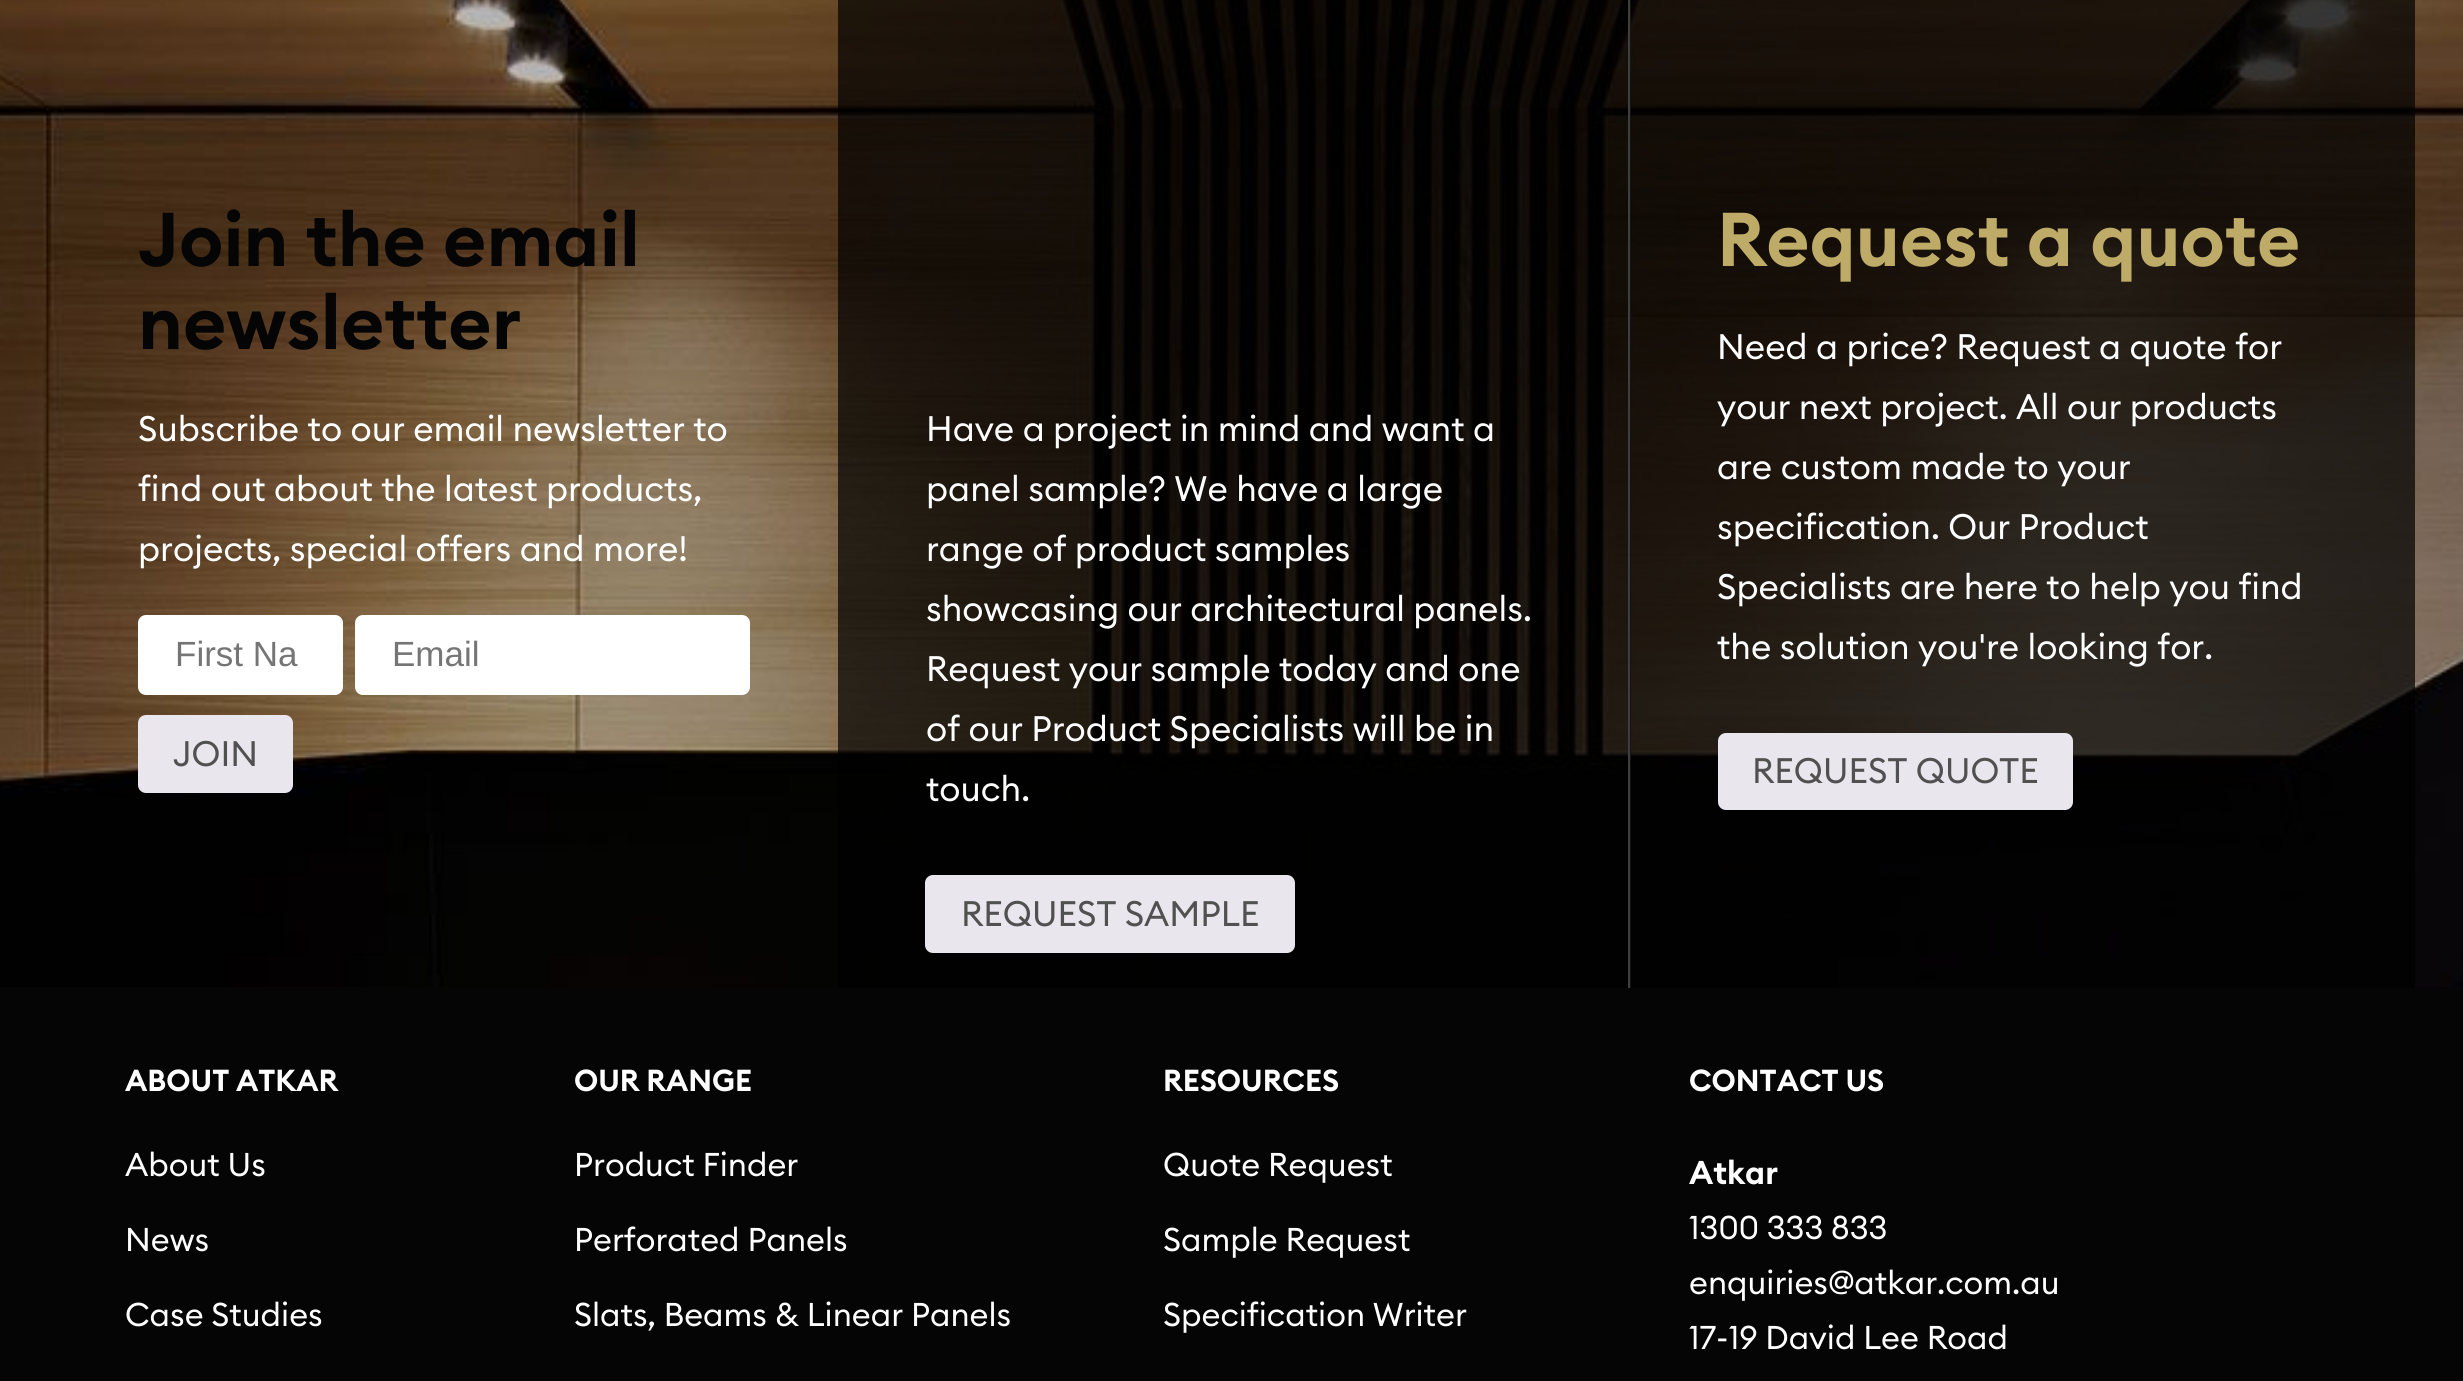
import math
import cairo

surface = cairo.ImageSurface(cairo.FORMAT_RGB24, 2463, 1381)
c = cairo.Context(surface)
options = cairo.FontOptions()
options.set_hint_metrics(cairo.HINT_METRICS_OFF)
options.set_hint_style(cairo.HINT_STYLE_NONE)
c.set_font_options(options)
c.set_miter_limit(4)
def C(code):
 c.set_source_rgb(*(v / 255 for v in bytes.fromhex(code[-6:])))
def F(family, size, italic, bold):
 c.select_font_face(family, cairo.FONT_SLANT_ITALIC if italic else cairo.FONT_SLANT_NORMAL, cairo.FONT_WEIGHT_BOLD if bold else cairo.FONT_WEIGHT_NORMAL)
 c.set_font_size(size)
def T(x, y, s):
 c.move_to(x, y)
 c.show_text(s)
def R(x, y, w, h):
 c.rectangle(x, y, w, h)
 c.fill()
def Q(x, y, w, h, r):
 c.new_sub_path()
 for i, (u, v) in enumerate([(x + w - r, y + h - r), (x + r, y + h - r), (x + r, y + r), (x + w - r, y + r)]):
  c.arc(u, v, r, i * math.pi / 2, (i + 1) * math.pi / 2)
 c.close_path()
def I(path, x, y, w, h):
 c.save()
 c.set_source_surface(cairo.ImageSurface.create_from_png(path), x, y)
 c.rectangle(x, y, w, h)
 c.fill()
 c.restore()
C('050505')
c.paint()
I('1.png',0,0,2463,987)
F('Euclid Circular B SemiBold',75,0,0)
C('050505')
T(138,266,'Join the email')
T(138,349,'newsletter')
F('Euclid Circular B',35,0,0)
C('ffffff')
T(138,441,'Subscribe to our email newsletter to')
T(138,501,'find out about the latest products,')
T(138,561,'projects, special offers and more!')
Q(138,615,205,80,8)
c.fill()
F('Liberation Sans',35,0,0)
C('757575')
T(175,666,'First Na')
C('ffffff')
Q(355,615,395,80,8)
c.fill()
C('757575')
T(392,666,'Email')
C('e9e6ed')
Q(138,715,155,78,8)
c.fill()
F('Euclid Circular B',35,0,0)
C('515151')
T(173,766,'JOIN')
c.set_source_rgba(0,0,0,0.7)
R(838,0,790,988)
C('ffffff')
T(926,441,'Have a project in mind and want a')
T(926,501,'panel sample? We have a large')
T(926,561,'range of product samples')
T(926,621,'showcasing our architectural panels.')
T(926,681,'Request your sample today and one')
T(926,741,'of our Product Specialists will be in')
T(926,801,'touch.')
C('e9e6ed')
Q(925,875,370,78,8)
c.fill()
C('515151')
T(961,926,'REQUEST SAMPLE')
C('3e3e3e')
R(1628,0,3,988)
c.set_source_rgba(0,0,0,0.7)
R(1630,0,785,988)
F('Euclid Circular B SemiBold',75,0,0)
C('beab67')
T(1717,266,'Request a quote')
F('Euclid Circular B',35,0,0)
C('ffffff')
T(1717,359,'Need a price? Request a quote for')
T(1717,419,'your next project. All our products')
T(1717,479,'are custom made to your')
T(1717,539,'specification. Our Product')
T(1717,599,'Specialists are here to help you find')
T(1717,659,'the solution you\'re looking for.')
C('e9e6ed')
Q(1718,733,355,77,8)
c.fill()
C('515151')
T(1752,783,'REQUEST QUOTE')
F('Euclid Circular B SemiBold',30,0,0)
C('ffffff')
T(125,1091,'ABOUT ATKAR')
F('Euclid Circular B',32.5,0,0)
T(125,1176,'About Us')
T(125,1251,'News')
T(125,1326,'Case Studies')
F('Euclid Circular B SemiBold',30,0,0)
T(574,1091,'OUR RANGE')
F('Euclid Circular B',32.5,0,0)
T(574,1176,'Product Finder')
T(574,1251,'Perforated Panels')
T(574,1326,'Slats, Beams & Linear Panels')
F('Euclid Circular B SemiBold',30,0,0)
T(1163,1091,'RESOURCES')
F('Euclid Circular B',32.5,0,0)
T(1163,1176,'Quote Request')
T(1163,1251,'Sample Request')
T(1163,1326,'Specification Writer')
F('Euclid Circular B SemiBold',30,0,0)
T(1689,1091,'CONTACT US')
F('Euclid Circular B SemiBold',32.5,0,0)
T(1689,1184,'Atkar')
F('Euclid Circular B',32.5,0,0)
T(1689,1239,'1300 333 833')
T(1689,1294,'enquiries@atkar.com.au')
T(1689,1349,'17-19 David Lee Road')
surface.write_to_png('o.png')
